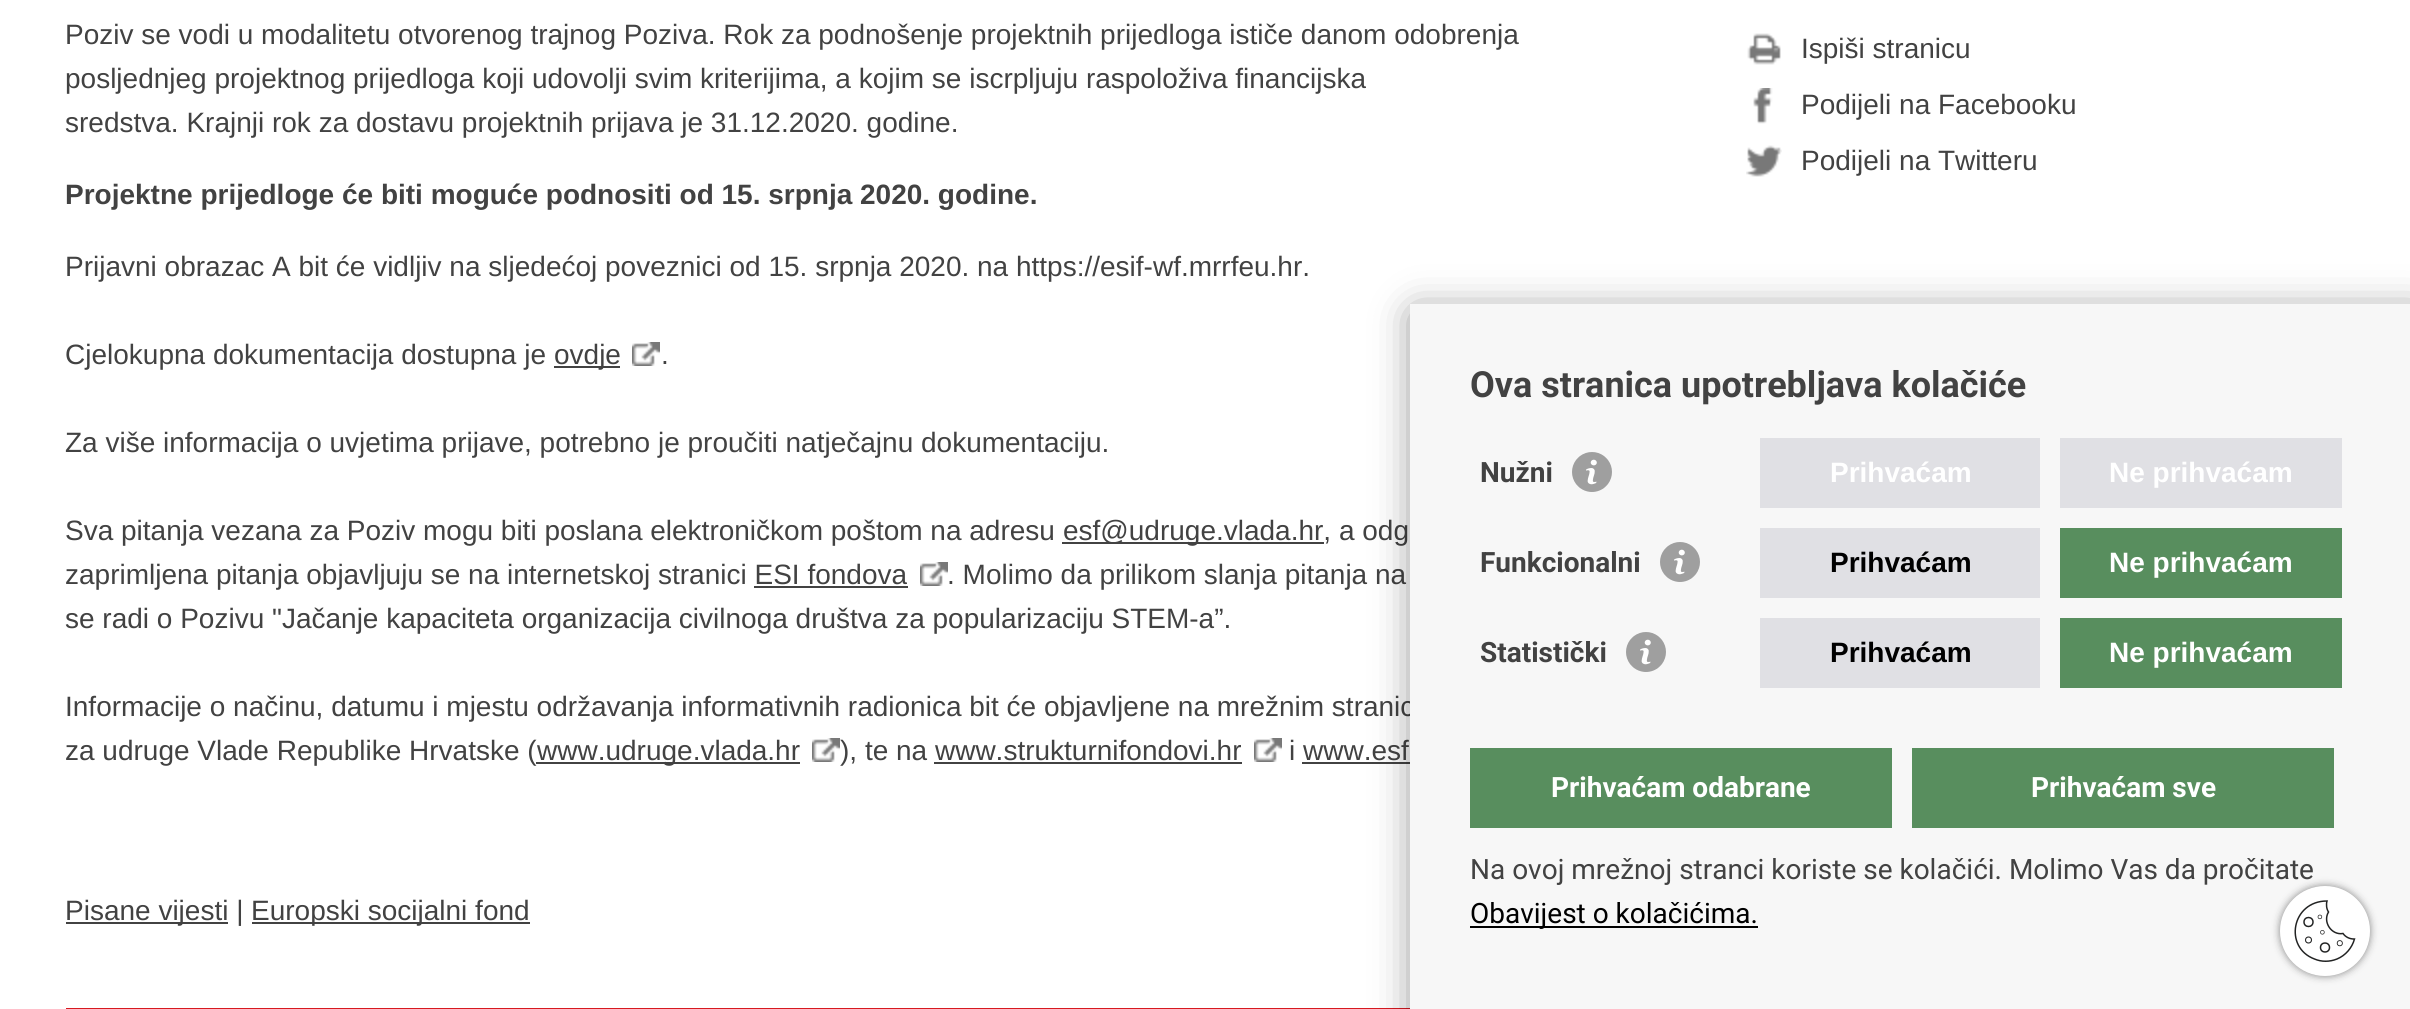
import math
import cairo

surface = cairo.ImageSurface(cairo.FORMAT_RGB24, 2410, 1009)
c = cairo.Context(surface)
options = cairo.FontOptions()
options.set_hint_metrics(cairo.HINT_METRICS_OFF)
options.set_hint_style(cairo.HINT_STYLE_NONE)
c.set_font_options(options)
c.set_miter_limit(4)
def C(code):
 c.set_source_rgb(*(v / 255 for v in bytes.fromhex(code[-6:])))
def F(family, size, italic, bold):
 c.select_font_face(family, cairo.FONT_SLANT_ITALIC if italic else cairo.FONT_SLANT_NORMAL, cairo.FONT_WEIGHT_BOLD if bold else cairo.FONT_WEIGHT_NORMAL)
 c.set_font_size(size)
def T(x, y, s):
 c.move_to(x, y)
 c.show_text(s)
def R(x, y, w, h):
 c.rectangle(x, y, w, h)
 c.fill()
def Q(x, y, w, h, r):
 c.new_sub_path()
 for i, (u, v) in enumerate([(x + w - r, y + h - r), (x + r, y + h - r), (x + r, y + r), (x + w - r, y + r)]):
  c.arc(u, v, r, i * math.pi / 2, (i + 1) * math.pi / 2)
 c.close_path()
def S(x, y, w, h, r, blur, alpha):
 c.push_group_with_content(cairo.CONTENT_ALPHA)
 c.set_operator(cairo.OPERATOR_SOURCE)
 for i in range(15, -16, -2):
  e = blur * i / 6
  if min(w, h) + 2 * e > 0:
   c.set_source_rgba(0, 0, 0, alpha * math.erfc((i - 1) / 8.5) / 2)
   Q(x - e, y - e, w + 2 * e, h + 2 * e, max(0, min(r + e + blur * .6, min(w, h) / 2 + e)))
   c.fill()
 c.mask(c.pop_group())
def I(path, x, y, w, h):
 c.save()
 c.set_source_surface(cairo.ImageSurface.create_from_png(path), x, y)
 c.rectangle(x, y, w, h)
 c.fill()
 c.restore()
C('ffffff')
c.paint()
F('Liberation Sans',28,0,0)
C('424242')
T(65,44,'Poziv se vodi u modalitetu otvorenog trajnog Poziva. Rok za podnošenje projektnih prijedloga ističe danom odobrenja')
T(65,88,'posljednjeg projektnog prijedloga koji udovolji svim kriterijima, a kojim se iscrpljuju raspoloživa financijska')
T(65,132,'sredstva. Krajnji rok za dostavu projektnih prijava je 31.12.2020. godine.')
F('Liberation Sans',28,0,1)
T(65,204,'Projektne prijedloge će biti moguće podnositi od 15. srpnja 2020. godine.')
F('Liberation Sans',28,0,0)
T(65,276,'Prijavni obrazac A bit će vidljiv na sljedećoj poveznici od 15. srpnja 2020. na https://esif-wf.mrrfeu.hr.')
T(65,364,'Cjelokupna dokumentacija dostupna je')
R(554,366,66,2)
T(554,364,'ovdje')
I('1.png',632,342,28,24)
T(661,364,'.')
T(65,452,'Za više informacija o uvjetima prijave, potrebno je proučiti natječajnu dokumentaciju.')
T(65,540,'Sva pitanja vezana za Poziv mogu biti poslana elektroničkom poštom na adresu')
R(1062,542,262,2)
T(1063,540,'esf@udruge.vlada.hr, a odg')
T(65,584,'zaprimljena pitanja objavljuju se na internetskoj stranici ESI fondova')
I('1.png',920,562,28,24)
T(947,584,'. Molimo da prilikom slanja pitanja na')
R(754,586,154,2)
T(65,628,'se radi o Pozivu "Jačanje kapaciteta organizacija civilnoga društva za popularizaciju STEM-a”.')
T(65,716,'Informacije o načinu, datumu i mjestu održavanja informativnih radionica bit će objavljene na mrežnim stranic')
T(65,760,'za udruge Vlade Republike Hrvatske (')
R(536,762,264,2)
T(537,760,'www.udruge.vlada.hr')
I('1.png',812,738,28,24)
T(840,760,'), te na www.strukturnifondovi.hr')
I('1.png',1254,738,28,24)
T(1289,760,'i www.esf')
R(934,762,308,2)
R(1302,762,108,2)
R(66,922,162,2)
T(65,920,'Pisane vijesti |')
R(252,922,278,2)
T(251,920,'Europski socijalni fond')
C('d71920')
R(66,1008,1344,1)
I('2.png',1747,33,34,32)
C('424242')
T(1801,58,'Ispiši stranicu')
I('3.png',1753,88,20,36)
T(1801,114,'Podijeli na Facebooku')
I('4.png',1746,145,36,32)
T(1801,170,'Podijeli na Twitteru')
C('000000')
S(1416,314,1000,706,0,20,.5)
C('f7f7f7')
R(1410,304,1000,705)
F('Roboto',36,0,1)
C('424242')
T(1470,397,'Ova stranica upotrebljava kolačiće')
F('Roboto',28,0,1)
T(1480,482,'Nužni')
I('5.png',1572,452,40,40)
C('e0e0e4')
R(1760,438,280,70)
F('Liberation Sans',28,0,1)
C('ffffff')
T(1830,482,'Prihvaćam')
C('e0e0e4')
R(2060,438,282,70)
C('ffffff')
T(2109,482,'Ne prihvaćam')
F('Roboto',28,0,1)
C('424242')
T(1480,572,'Funkcionalni')
I('5.png',1660,542,40,40)
C('e0e0e4')
R(1760,528,280,70)
F('Liberation Sans',28,0,1)
C('000000')
T(1830,572,'Prihvaćam')
C('588e5e')
R(2060,528,282,70)
C('ffffff')
T(2109,572,'Ne prihvaćam')
F('Roboto',28,0,1)
C('424242')
T(1480,662,'Statistički')
I('5.png',1626,632,40,40)
C('e0e0e4')
R(1760,618,280,70)
F('Liberation Sans',28,0,1)
C('000000')
T(1830,662,'Prihvaćam')
C('588e5e')
R(2060,618,282,70)
C('ffffff')
T(2109,662,'Ne prihvaćam')
C('588e5e')
R(1470,748,422,80)
F('Roboto',28,0,1)
C('ffffff')
T(1551,797,'Prihvaćam odabrane')
C('588e5e')
R(1912,748,422,80)
C('ffffff')
T(2031,797,'Prihvaćam sve')
F('Roboto',28,0,0)
C('424242')
T(1470,879,'Na ovoj mrežnoj stranci koriste se kolačići. Molimo Vas da pročitate')
C('000000')
R(1470,926,288,2)
T(1470,923,'Obavijest o kolačićima.')
C('858585')
S(2280,886,90,90,45,4,1)
C('ffffff')
c.arc(2325,931,45,0,2 * math.pi)
c.fill()
c.new_path()
c.move_to(2354,939)
c.curve_to(2349.5,939,2345.5,937,2343,933.5)
c.curve_to(2331.5,935.5,2322.5,922,2328.5,912)
c.curve_to(2326.5,909,2326,904.5,2327,901)
c.curve_to(2291.5,901,2283.5,947.5,2314.5,959)
c.curve_to(2321.5,962,2329.5,962,2337,959)
c.curve_to(2345.5,955.5,2352,948,2354.5,939)
c.close_path()
C('222323')
c.set_line_width(1.5)
c.stroke()
c.arc(2308.5,922,4.5,0,2 * math.pi)
c.stroke()
c.arc(2325,947.5,4.5,0,2 * math.pi)
c.stroke()
c.arc(2308.5,940,3,0,2 * math.pi)
c.set_line_width(1.1)
c.stroke()
c.arc(2339.8,943.2,2.6,0,2 * math.pi)
c.set_line_width(.9)
c.stroke()
c.arc(2322.4,932.3,1.9,0,2 * math.pi)
c.set_line_width(.7)
c.stroke()
c.arc(2319.9,916.9,1.9,0,2 * math.pi)
c.stroke()
surface.write_to_png('o.png')
